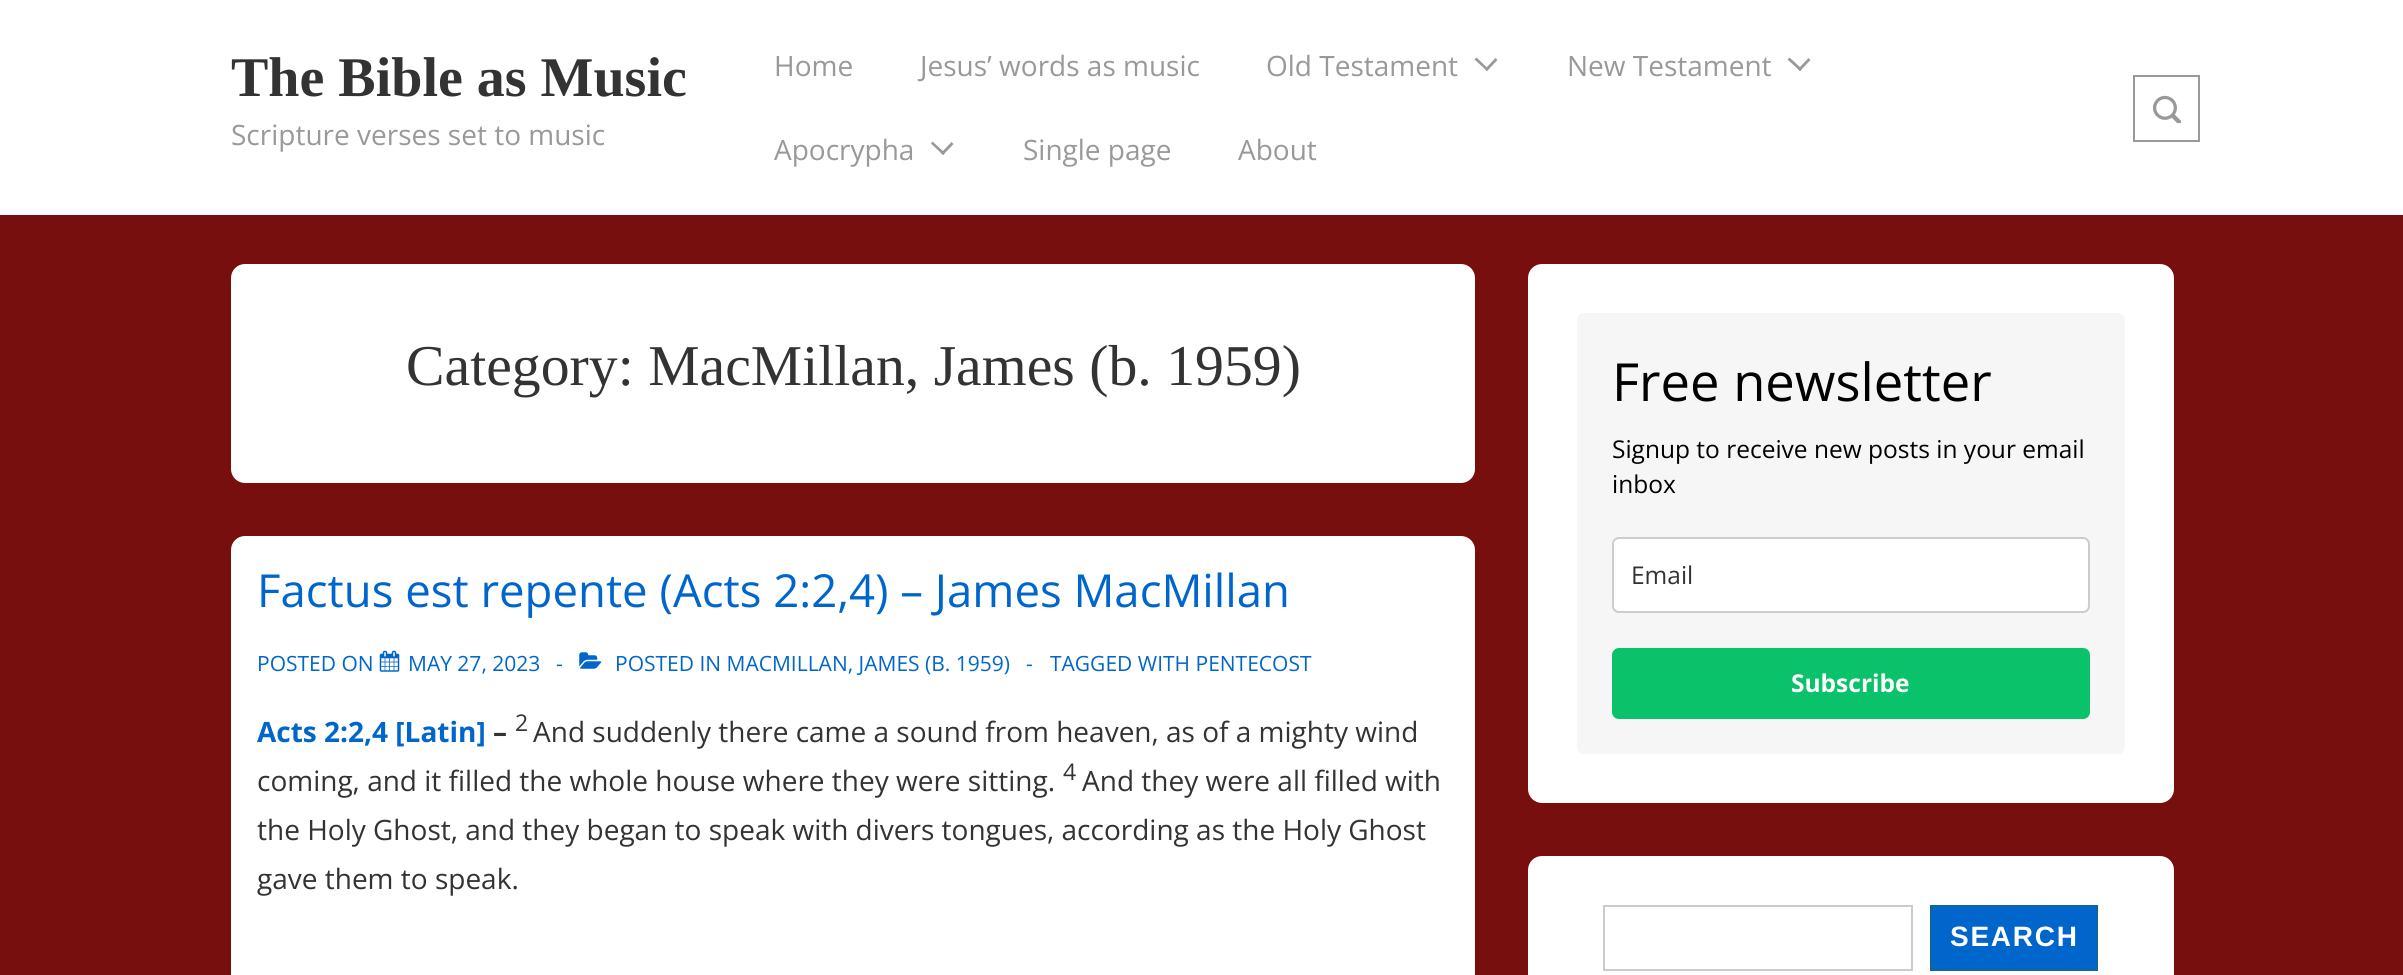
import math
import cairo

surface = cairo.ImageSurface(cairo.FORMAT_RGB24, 2403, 975)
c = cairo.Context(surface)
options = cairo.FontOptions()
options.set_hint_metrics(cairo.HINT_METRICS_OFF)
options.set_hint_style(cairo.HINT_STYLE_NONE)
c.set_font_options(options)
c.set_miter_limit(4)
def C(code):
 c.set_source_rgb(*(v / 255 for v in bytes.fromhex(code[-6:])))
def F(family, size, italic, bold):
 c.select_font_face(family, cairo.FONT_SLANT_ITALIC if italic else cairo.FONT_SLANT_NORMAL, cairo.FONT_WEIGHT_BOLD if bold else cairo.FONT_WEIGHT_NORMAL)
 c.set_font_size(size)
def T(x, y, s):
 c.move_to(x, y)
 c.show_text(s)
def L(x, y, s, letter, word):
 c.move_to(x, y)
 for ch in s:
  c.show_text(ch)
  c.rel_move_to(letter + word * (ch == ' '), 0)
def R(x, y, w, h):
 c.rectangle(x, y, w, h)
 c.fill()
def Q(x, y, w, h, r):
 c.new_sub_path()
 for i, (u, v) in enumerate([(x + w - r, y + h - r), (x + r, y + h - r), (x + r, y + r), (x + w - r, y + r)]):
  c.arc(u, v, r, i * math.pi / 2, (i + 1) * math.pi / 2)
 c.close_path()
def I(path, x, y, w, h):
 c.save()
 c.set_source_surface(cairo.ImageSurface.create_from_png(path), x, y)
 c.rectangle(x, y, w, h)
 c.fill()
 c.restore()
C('780f0f')
c.paint()
C('ffffff')
R(0,0,2403,215)
F('Liberation Serif',56,0,1)
C('333333')
T(231,96,'The Bible as Music')
F('Open Sans',28,0,0)
C('999999')
T(231,145,'Scripture verses set to music')
T(774,76,'Home')
T(920,76,'Jesus’ words as music')
T(1266,76,'Old Testament')
c.new_path()
c.move_to(1474.5,59.5)
c.line_to(1476.5,57.5)
c.line_to(1488.5,69)
c.line_to(1487,71)
c.close_path()
c.fill()
c.new_path()
c.move_to(1485,69)
c.line_to(1495.5,58)
c.line_to(1497.5,60)
c.line_to(1487,71)
c.close_path()
c.fill()
T(1567,76,'New Testament')
c.new_path()
c.move_to(1787.5,59.5)
c.line_to(1789.5,57.5)
c.line_to(1802,69)
c.line_to(1800,71)
c.close_path()
c.fill()
c.new_path()
c.move_to(1798,69)
c.line_to(1808.5,58)
c.line_to(1810.5,60)
c.line_to(1800,71)
c.close_path()
c.fill()
T(774,160,'Apocrypha')
c.new_path()
c.move_to(931,143.5)
c.line_to(932.5,141.5)
c.line_to(945,153)
c.line_to(943,155)
c.close_path()
c.fill()
c.new_path()
c.move_to(941,153)
c.line_to(951.5,142)
c.line_to(953.5,144)
c.line_to(943,155)
c.close_path()
c.fill()
T(1023,160,'Single page')
T(1238,160,'About')
c.rectangle(2134,76,65,65)
c.stroke()
I('1.png',2153,95,28,28)
C('ffffff')
Q(231,264,1244,219,14)
c.fill()
F('Liberation Serif',57.75,0,0)
C('333333')
T(406,385,'Category: MacMillan, James (b. 1959)')
C('ffffff')
Q(231,536,1244,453,14)
c.fill()
F('Open Sans',45.5,0,0)
C('0066cc')
T(257,607,'Factus est repente (Acts 2:2,4) – James MacMillan')
F('Open Sans',21,0,0)
T(257,671,'POSTED ON')
I('2.png',379,650,21,22)
T(408,671,'MAY 27, 2023')
T(556,671,'-')
I('3.png',579,652,23,17)
T(615,671,'POSTED IN MACMILLAN, JAMES (B. 1959)')
T(1026,671,'-')
T(1050,671,'TAGGED WITH PENTECOST')
F('Open Sans',28,0,1)
T(257,742,'Acts 2:2,4 [Latin]')
C('333333')
T(493,742,'–')
F('Open Sans',23,0,0)
T(515,731,'2')
F('Open Sans',28,0,0)
T(533,742,'And suddenly there came a sound from heaven, as of a mighty wind')
T(257,791,'coming, and it filled the whole house where they were sitting.')
F('Open Sans',23,0,0)
T(1063,780,'4')
F('Open Sans',28,0,0)
T(1082,791,'And they were all filled with')
T(257,840,'the Holy Ghost, and they began to speak with divers tongues, according as the Holy Ghost')
T(257,889,'gave them to speak.')
C('ffffff')
Q(1528,264,646,539,14)
c.fill()
C('f6f6f6')
Q(1577,313,548,441,7)
c.fill()
F('Open Sans',52.5,0,0)
C('000000')
T(1612,401,'Free newsletter')
F('Open Sans',24.5,0,0)
T(1612,458,'Signup to receive new posts in your email')
T(1612,493,'inbox')
C('ffffff')
Q(1613,538,476,74,6)
c.fill_preserve()
C('cccccc')
c.stroke()
C('333333')
T(1631,584,'Email')
C('09c269')
Q(1612,648,478,71,7)
c.fill()
F('Open Sans',24.5,0,1)
C('ffffff')
T(1791,692,'Subscribe')
Q(1528,856,646,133,14)
c.fill()
c.rectangle(1604,906,308,64)
C('cccccc')
c.stroke()
C('0066cc')
c.rectangle(1931,906,166,64)
c.fill_preserve()
C('10659c')
c.stroke()
F('Liberation Sans',28,0,1)
C('ffffff')
L(1950,946,'SEARCH',1.75,0)
surface.write_to_png('o.png')
